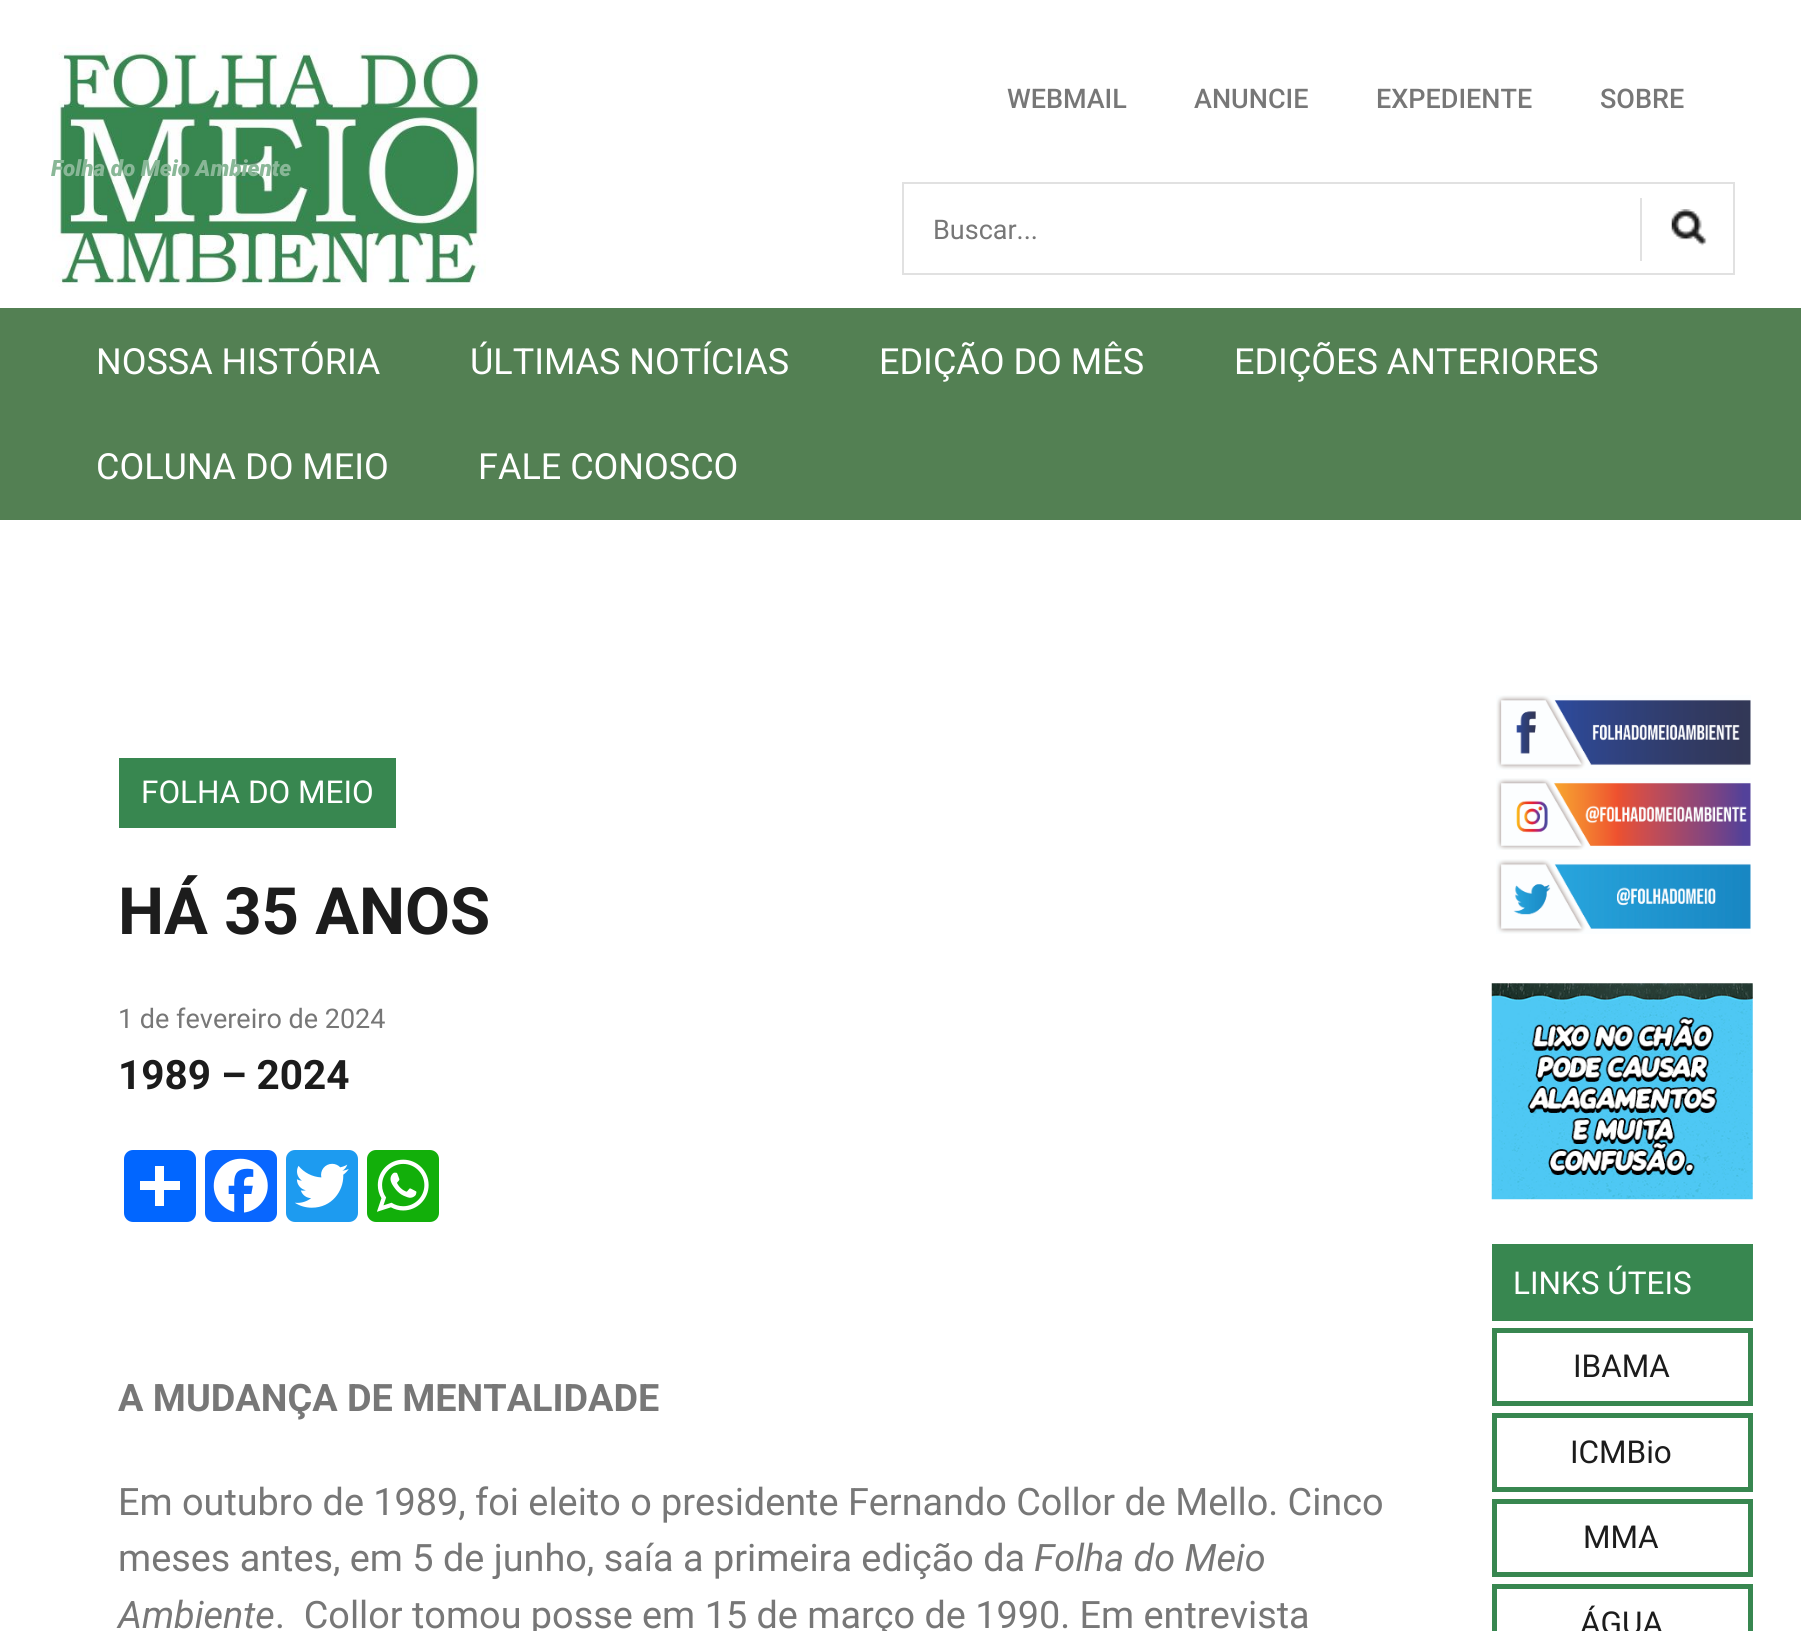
import math
import cairo

surface = cairo.ImageSurface(cairo.FORMAT_RGB24, 1801, 1631)
c = cairo.Context(surface)
options = cairo.FontOptions()
options.set_hint_metrics(cairo.HINT_METRICS_OFF)
options.set_hint_style(cairo.HINT_STYLE_NONE)
c.set_font_options(options)
c.set_miter_limit(4)
def C(code):
 c.set_source_rgb(*(v / 255 for v in bytes.fromhex(code[-6:])))
def F(family, size, italic, bold):
 c.select_font_face(family, cairo.FONT_SLANT_ITALIC if italic else cairo.FONT_SLANT_NORMAL, cairo.FONT_WEIGHT_BOLD if bold else cairo.FONT_WEIGHT_NORMAL)
 c.set_font_size(size)
def T(x, y, s):
 c.move_to(x, y)
 c.show_text(s)
def R(x, y, w, h):
 c.rectangle(x, y, w, h)
 c.fill()
def Q(x, y, w, h, r):
 c.new_sub_path()
 for i, (u, v) in enumerate([(x + w - r, y + h - r), (x + r, y + h - r), (x + r, y + r), (x + w - r, y + r)]):
  c.arc(u, v, r, i * math.pi / 2, (i + 1) * math.pi / 2)
 c.close_path()
def I(path, x, y, w, h):
 c.save()
 c.set_source_surface(cairo.ImageSurface.create_from_png(path), x, y)
 c.rectangle(x, y, w, h)
 c.fill()
 c.restore()
C('ffffff')
c.paint()
I('1.png',52,45,434,242)
F('Roboto Black',22.5,1,0)
C('89b797')
T(51,176,'Folha do Meio Ambiente')
F('Roboto Medium',27,0,0)
C('777777')
T(1007,108,'WEBMAIL')
T(1194,108,'ANUNCIE')
T(1376,108,'EXPEDIENTE')
T(1600,108,'SOBRE')
c.rectangle(903,183,831,91)
C('e1e1e1')
c.stroke()
F('Roboto',27,0,0)
C('777777')
T(933,239,'Buscar...')
C('e1e1e1')
R(1640,198,2,63)
I('2.png',1671,209,36,37)
C('538053')
R(0,308,1801,212)
F('Roboto',36,0,0)
C('ffffff')
T(96,374,'NOSSA HISTÓRIA')
T(470,374,'ÚLTIMAS NOTÍCIAS')
T(879,374,'EDIÇÃO DO MÊS')
T(1234,374,'EDIÇÕES ANTERIORES')
T(96,479,'COLUNA DO MEIO')
T(478,479,'FALE CONOSCO')
C('388750')
R(119,758,277,70)
F('Roboto',31.5,0,0)
C('ffffff')
T(141,803,'FOLHA DO MEIO')
F('Roboto',65.25,0,1)
C('1c1c1c')
T(118,934,'HÁ 35 ANOS')
F('Roboto',27,0,0)
C('777777')
T(118,1028,'1 de fevereiro de 2024')
F('Roboto',40.5,0,1)
C('1c1c1c')
T(118,1089,'1989 – 2024')
C('0166ff')
Q(124,1150,72,72,9)
c.fill()
C('ffffff')
R(155,1166,9,40)
R(140,1181,40,9)
C('0866ff')
Q(205,1150,72,72,9)
c.fill()
I('3.png',213,1158,55,55)
C('1d9bf0')
Q(286,1150,72,72,9)
c.fill()
I('4.png',295,1163,54,45)
C('12af0a')
Q(367,1150,72,72,9)
c.fill()
I('5.png',377,1159,52,53)
F('Roboto',37.8,0,1)
C('777777')
T(118,1411,'A MUDANÇA DE MENTALIDADE')
F('Roboto',37.8,0,0)
T(118,1515,'Em outubro de 1989, foi eleito o presidente Fernando Collor de Mello. Cinco')
T(118,1571,'meses antes, em 5 de junho, saía a primeira edição da')
F('Roboto',37.8,1,0)
T(1034,1571,'Folha do Meio')
T(118,1628,'Ambiente')
F('Roboto',37.8,0,0)
T(275,1628,'.  Collor tomou posse em 15 de março de 1990. Em entrevista')
I('6.png',1496,695,255,75)
I('7.png',1496,778,255,72)
I('8.png',1496,859,255,75)
I('9.png',1491,983,262,217)
C('388750')
R(1492,1244,261,77)
F('Roboto',31.5,0,0)
C('ffffff')
T(1513,1294,'LINKS ÚTEIS')
c.rectangle(1494.5,1330.5,256,73)
C('388750')
c.set_line_width(5)
c.stroke()
C('1c1c1c')
T(1573,1377,'IBAMA')
c.rectangle(1494.5,1415.5,256,74)
C('388750')
c.stroke()
C('1c1c1c')
T(1570,1463,'ICMBio')
c.rectangle(1494.5,1501.5,256,73)
C('388750')
c.stroke()
C('1c1c1c')
T(1583,1548,'MMA')
c.rectangle(1494.5,1586.5,256,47)
C('388750')
c.stroke()
C('1c1c1c')
T(1580,1634,'ÁGUA')
surface.write_to_png('o.png')
